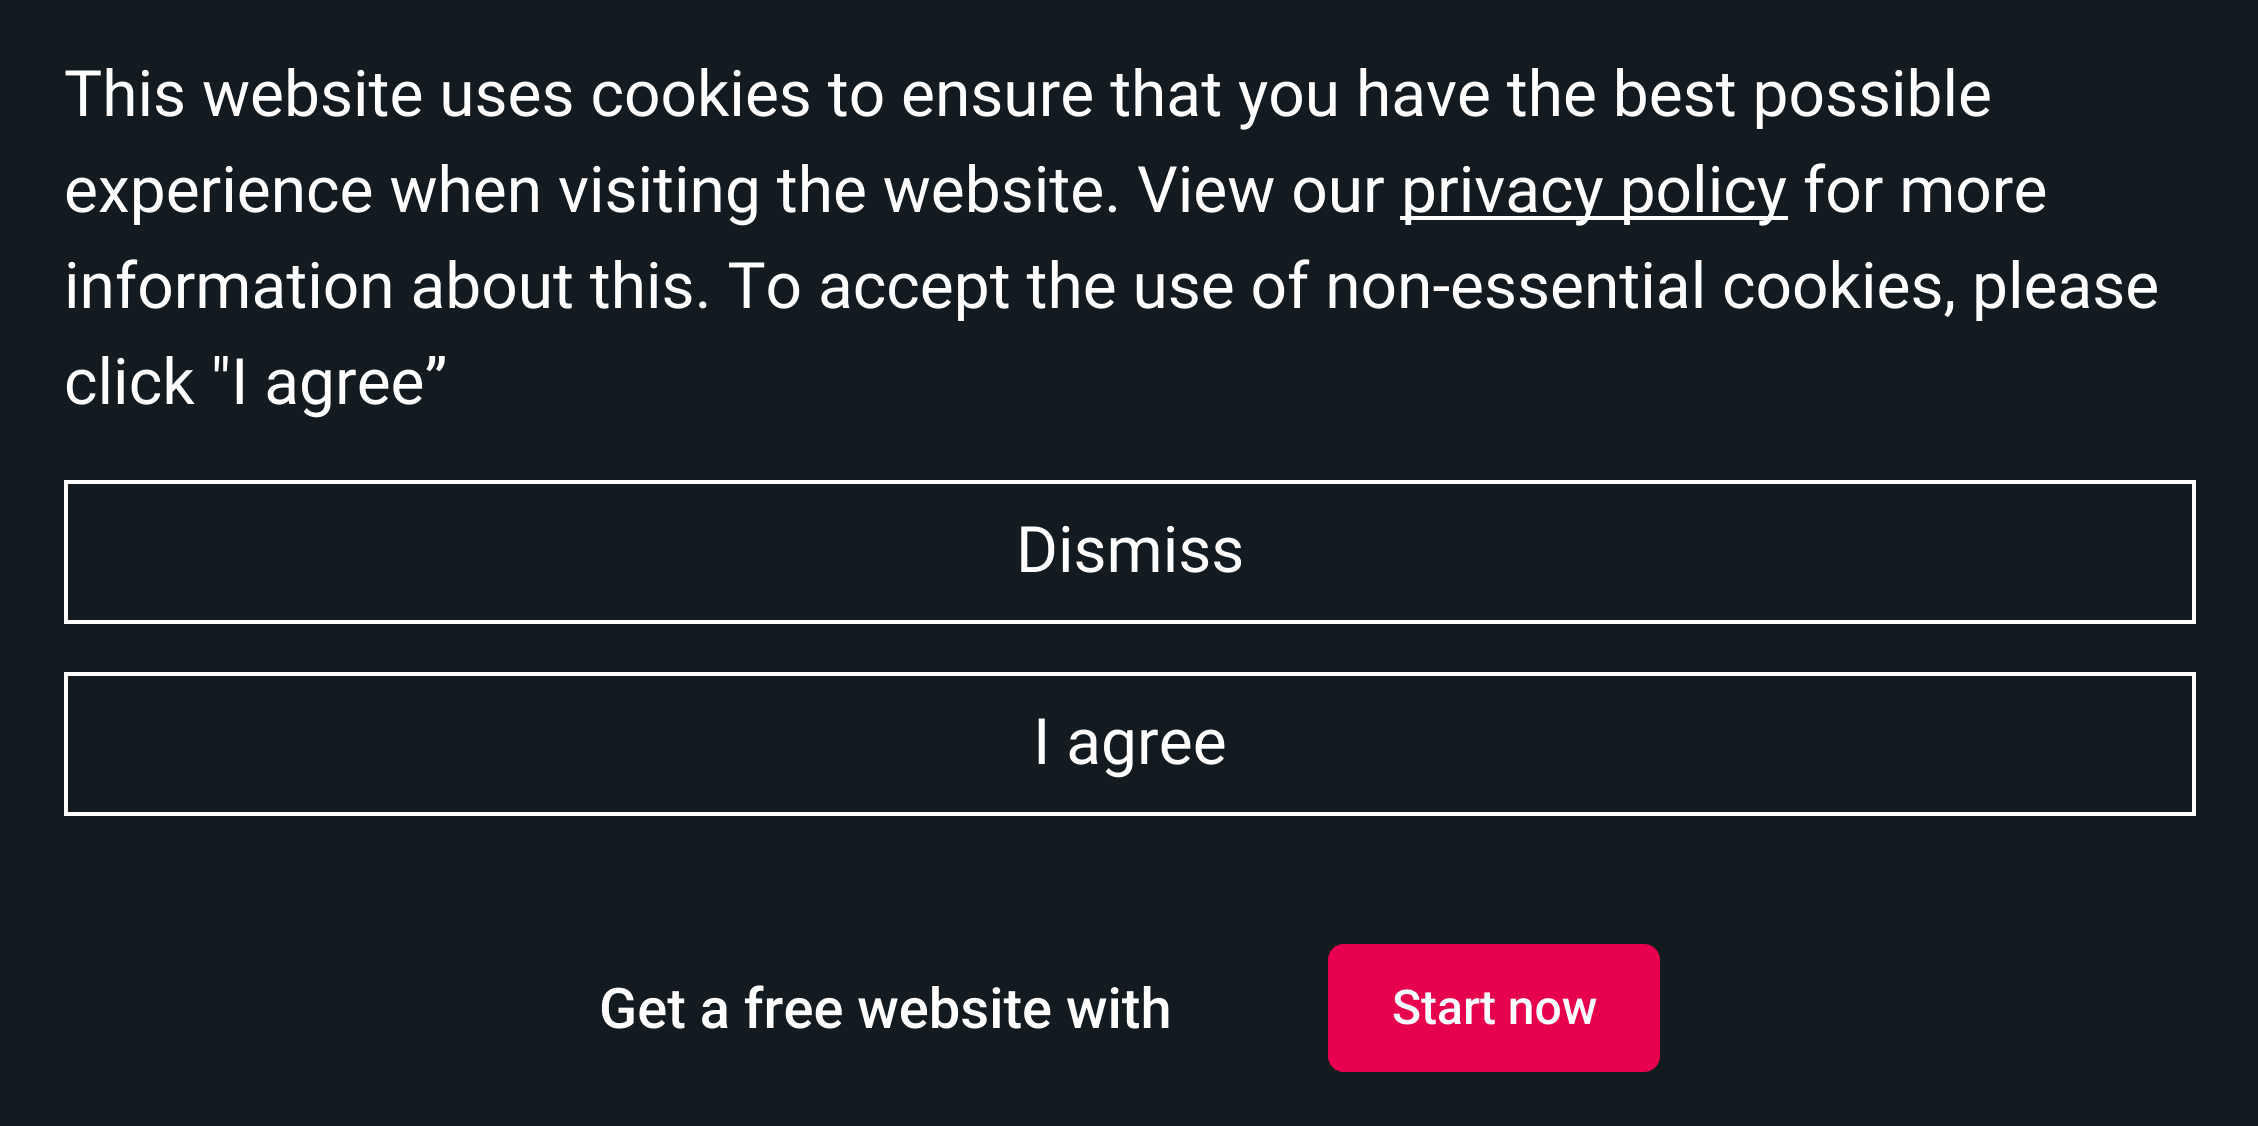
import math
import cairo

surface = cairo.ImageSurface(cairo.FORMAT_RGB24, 2258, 1126)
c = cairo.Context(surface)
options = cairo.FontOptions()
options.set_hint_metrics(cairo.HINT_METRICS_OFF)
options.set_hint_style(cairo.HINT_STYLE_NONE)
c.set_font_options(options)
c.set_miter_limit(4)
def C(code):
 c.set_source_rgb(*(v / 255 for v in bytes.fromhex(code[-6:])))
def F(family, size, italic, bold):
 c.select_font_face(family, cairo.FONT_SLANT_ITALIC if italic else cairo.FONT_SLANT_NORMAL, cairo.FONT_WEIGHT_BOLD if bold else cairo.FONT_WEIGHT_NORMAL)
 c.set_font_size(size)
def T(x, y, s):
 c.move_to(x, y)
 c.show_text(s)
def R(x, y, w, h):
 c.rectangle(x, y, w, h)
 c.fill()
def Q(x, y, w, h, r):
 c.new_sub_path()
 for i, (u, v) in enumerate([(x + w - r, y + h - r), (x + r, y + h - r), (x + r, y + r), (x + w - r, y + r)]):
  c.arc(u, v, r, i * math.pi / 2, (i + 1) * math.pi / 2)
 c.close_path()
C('131a20')
c.paint()
F('Roboto',64,0,0)
C('ffffff')
T(64,116,'This website uses cookies to ensure that you have the best possible')
T(64,212,'experience when visiting the website. View our')
R(1400,216,388,4)
T(1401,212,'privacy policy for more')
T(64,308,'information about this. To accept the use of non-essential cookies, please')
T(64,404,'click "I agree”')
c.rectangle(66,482,2128,140)
c.set_line_width(4)
c.stroke()
T(1016,572,'Dismiss')
c.rectangle(66,674,2128,140)
c.stroke()
T(1033,764,'I agree')
F('Roboto Medium',56,0,0)
T(599,1028,'Get a free website with')
C('e7004f')
Q(1328,944,332,128,16)
c.fill()
F('Roboto Medium',48,0,0)
C('ffffff')
T(1392,1024,'Start now')
surface.write_to_png('o.png')
